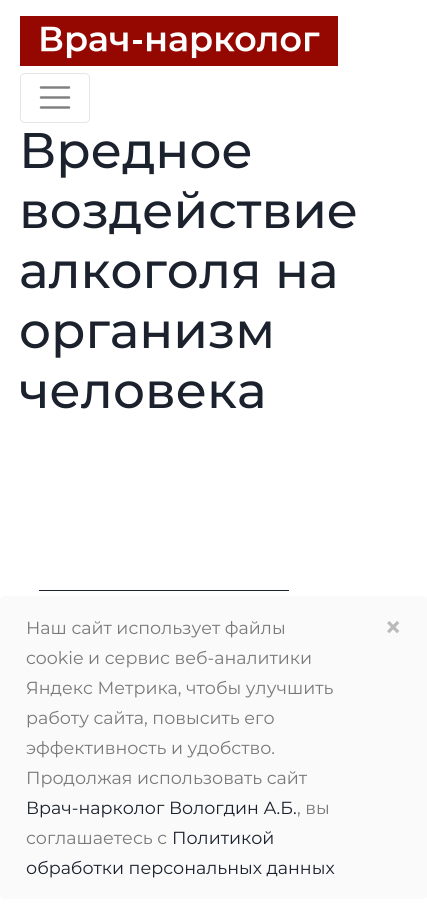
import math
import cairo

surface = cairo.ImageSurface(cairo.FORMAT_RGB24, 427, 918)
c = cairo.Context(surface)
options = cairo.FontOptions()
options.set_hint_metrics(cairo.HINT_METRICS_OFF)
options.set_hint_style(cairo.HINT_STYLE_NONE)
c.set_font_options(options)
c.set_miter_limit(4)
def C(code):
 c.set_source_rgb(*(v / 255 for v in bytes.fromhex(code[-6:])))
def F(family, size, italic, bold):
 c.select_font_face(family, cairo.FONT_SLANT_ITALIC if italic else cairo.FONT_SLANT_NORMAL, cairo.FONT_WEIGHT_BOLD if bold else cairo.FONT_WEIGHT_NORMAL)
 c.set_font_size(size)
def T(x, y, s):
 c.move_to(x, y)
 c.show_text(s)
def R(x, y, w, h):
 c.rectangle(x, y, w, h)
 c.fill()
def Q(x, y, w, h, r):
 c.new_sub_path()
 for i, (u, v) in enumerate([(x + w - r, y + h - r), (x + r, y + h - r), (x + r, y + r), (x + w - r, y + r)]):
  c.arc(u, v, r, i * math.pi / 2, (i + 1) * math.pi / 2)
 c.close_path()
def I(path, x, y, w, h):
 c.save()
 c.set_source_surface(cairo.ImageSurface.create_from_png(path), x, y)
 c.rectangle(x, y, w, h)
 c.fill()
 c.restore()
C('ffffff')
c.paint()
I('1.png',20,16,318,50)
Q(20.5,73.5,69,49,4.5)
C('e6e6e6')
c.set_line_width(1)
c.stroke()
c.new_path()
c.move_to(41,87.5)
c.line_to(69,87.5)
c.move_to(41,97.5)
c.line_to(69,97.5)
c.move_to(41,107.5)
c.line_to(69,107.5)
C('808080')
c.set_line_width(2.5)
c.set_line_cap(cairo.LINE_CAP_ROUND)
c.stroke()
F('Montserrat Medium',50,0,0)
C('1b212d')
T(19,168,'Вредное')
T(19,228,'воздействие')
T(19,288,'алкоголя на')
T(19,348,'организм')
T(19,408,'человека')
R(39,590,250,1)
C('fafafa')
Q(0,596,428,303,5)
c.fill()
F('Montserrat',17.5,0,0)
C('797979')
T(26,634,'Наш сайт использует файлы')
T(26,664,'cookie и сервис веб-аналитики')
T(26,694,'Яндекс Метрика, чтобы улучшить')
T(26,724,'работу сайта, повысить его')
T(26,754,'эффективность и удобство.')
T(26,784,'Продолжая использовать сайт')
C('1b212d')
T(26,814,'Врач-нарколог Вологдин А.Б.')
C('797979')
T(297,814,', вы')
T(26,844,'соглашаетесь c')
C('1b212d')
T(172,844,'Политикой')
T(26,874,'обработки персональных данных')
F('Montserrat',30,0,1)
C('bababa')
T(384,638,'×')
surface.write_to_png('o.png')
